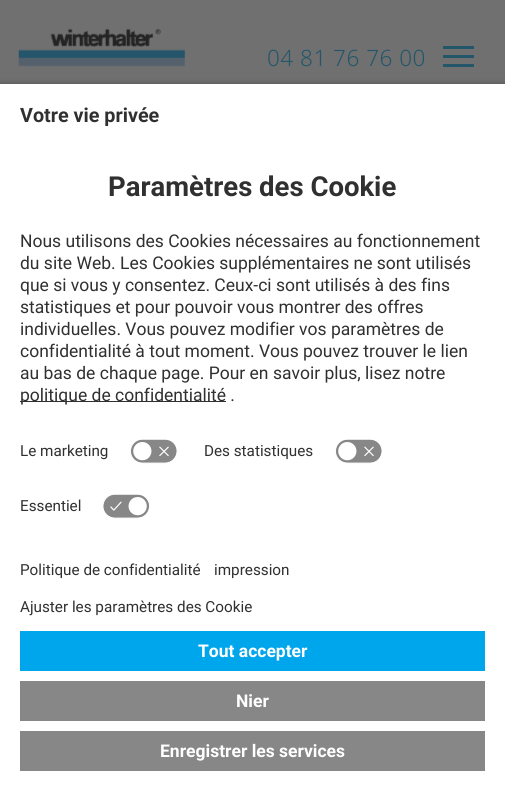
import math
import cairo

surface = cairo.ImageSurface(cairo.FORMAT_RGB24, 505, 806)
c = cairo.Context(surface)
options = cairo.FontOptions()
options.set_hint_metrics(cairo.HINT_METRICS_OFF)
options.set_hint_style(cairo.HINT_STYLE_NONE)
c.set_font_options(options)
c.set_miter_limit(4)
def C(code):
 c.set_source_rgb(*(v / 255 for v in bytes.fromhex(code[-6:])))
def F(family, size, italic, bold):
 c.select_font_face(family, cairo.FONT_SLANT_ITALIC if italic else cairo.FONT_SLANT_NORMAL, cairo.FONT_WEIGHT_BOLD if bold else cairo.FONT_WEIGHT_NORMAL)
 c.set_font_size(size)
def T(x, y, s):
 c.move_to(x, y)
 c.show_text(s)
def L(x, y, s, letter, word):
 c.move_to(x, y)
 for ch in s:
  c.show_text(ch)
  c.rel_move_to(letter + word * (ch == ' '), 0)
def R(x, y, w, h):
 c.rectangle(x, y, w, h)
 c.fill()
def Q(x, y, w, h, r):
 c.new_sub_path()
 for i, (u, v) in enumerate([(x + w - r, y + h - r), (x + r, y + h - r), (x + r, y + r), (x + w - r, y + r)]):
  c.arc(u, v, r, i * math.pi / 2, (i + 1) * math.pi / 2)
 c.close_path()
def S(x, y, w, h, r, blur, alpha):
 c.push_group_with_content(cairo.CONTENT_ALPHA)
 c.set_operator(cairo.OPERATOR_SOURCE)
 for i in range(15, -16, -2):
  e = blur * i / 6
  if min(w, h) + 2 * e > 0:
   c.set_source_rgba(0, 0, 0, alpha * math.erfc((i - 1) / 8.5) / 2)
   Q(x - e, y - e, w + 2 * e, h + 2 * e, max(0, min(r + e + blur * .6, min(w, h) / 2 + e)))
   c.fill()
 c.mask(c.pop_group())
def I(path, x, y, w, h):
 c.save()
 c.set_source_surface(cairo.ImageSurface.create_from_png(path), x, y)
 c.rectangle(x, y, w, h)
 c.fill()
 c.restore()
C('707070')
c.paint()
I('1.png',18,28,168,39)
F('Noto Sans Light',22.5,0,0)
C('24566a')
L(267,66,'04 81 76 76 00',.5,0)
R(443,46,31,3)
R(443,55,31,3)
R(443,64,31,3)
C('000000')
S(0,88,505,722,0,4.5,.8)
C('ffffff')
R(0,84,505,722)
F('Roboto',19.75,0,1)
C('303030')
T(20,122,'Votre vie privée')
F('Roboto',27.5,0,1)
T(108,196,'Paramètres des Cookie')
F('Roboto',17.5,0,0)
T(20,247,'Nous utilisons des Cookies nécessaires au fonctionnement')
T(20,269,'du site Web. Les Cookies supplémentaires ne sont utilisés')
T(20,291,'que si vous y consentez. Ceux-ci sont utilisés à des fins')
T(20,313,'statistiques et pour pouvoir vous montrer des offres')
T(20,335,'individuelles. Vous pouvez modifier vos paramètres de')
T(20,357,'confidentialité à tout moment. Vous pouvez trouver le lien')
T(20,379,'au bas de chaque page. Pour en savoir plus, lisez notre')
R(20,401,206,1)
T(20,401,'politique de confidentialité .')
F('Roboto',15.25,0,0)
T(20,456,'Le marketing')
I('2.png',130,439,48,25)
T(204,456,'Des statistiques')
I('2.png',335,439,48,25)
T(20,511,'Essentiel')
I('3.png',102,494,48,25)
T(20,575,'Politique de confidentialité')
T(214,575,'impression')
T(20,612,'Ajuster les paramètres des Cookie')
C('00a6eb')
R(20,631,465,40)
F('Roboto',17.5,0,1)
C('ffffff')
T(198,657,'Tout accepter')
C('878787')
R(20,681,465,40)
C('ffffff')
T(236,707,'Nier')
C('878787')
R(20,731,465,40)
C('ffffff')
T(160,757,'Enregistrer les services')
surface.write_to_png('o.png')
